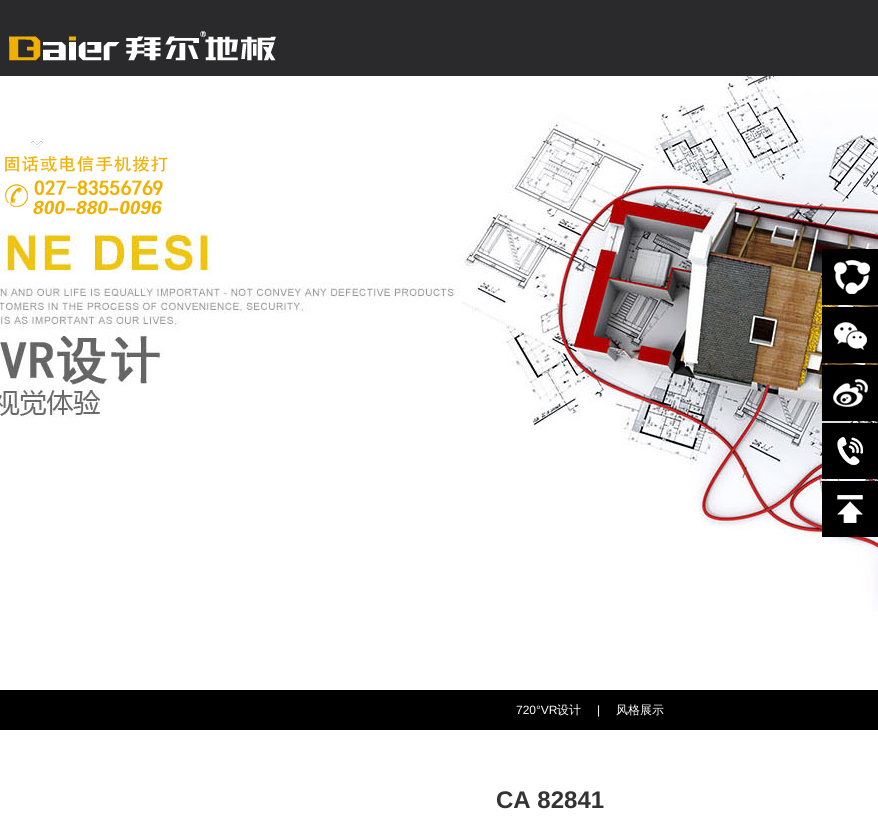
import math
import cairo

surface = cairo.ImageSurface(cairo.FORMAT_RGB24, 878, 829)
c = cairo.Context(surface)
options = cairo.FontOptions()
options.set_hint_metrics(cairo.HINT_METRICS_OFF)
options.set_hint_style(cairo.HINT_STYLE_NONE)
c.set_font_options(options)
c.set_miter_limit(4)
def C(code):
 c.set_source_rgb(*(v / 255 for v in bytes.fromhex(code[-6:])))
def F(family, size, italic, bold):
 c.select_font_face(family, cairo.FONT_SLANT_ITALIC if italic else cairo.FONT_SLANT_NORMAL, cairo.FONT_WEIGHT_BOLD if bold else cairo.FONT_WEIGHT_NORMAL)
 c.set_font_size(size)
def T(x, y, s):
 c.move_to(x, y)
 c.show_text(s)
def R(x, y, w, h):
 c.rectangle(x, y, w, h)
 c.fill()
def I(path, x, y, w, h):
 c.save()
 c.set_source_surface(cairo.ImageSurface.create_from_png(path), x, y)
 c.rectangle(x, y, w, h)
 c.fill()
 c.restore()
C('ffffff')
c.paint()
C('2a2a2d')
R(0,0,878,76)
I('1.png',9,31,267,30)
I('4.png',0,76,878,536)
I('2.png',30,139,14,11)
I('3.png',5,155,163,60)
C('000000')
R(822,249,56,56)
I('5.png',834,260,36,34)
R(822,307,56,56)
I('6.png',834,322,33,28)
R(822,365,56,56)
I('7.png',833,379,35,28)
R(822,423,56,56)
I('8.png',837,437,26,28)
R(822,481,56,56)
I('9.png',837,495,26,28)
R(0,690,878,40)
F('Liberation Sans',12,0,0)
C('ffffff')
T(516,714,'720°VR')
F('WenQuanYi Zen Hei Medium',12,0,0)
T(557,714,'设计')
F('Liberation Sans',12,0,0)
T(597,714,'|')
F('WenQuanYi Zen Hei Medium',12,0,0)
T(616,714,'风格展示')
F('Liberation Sans',24,0,1)
C('333333')
T(496,808,'CA 82841')
surface.write_to_png('o.png')
